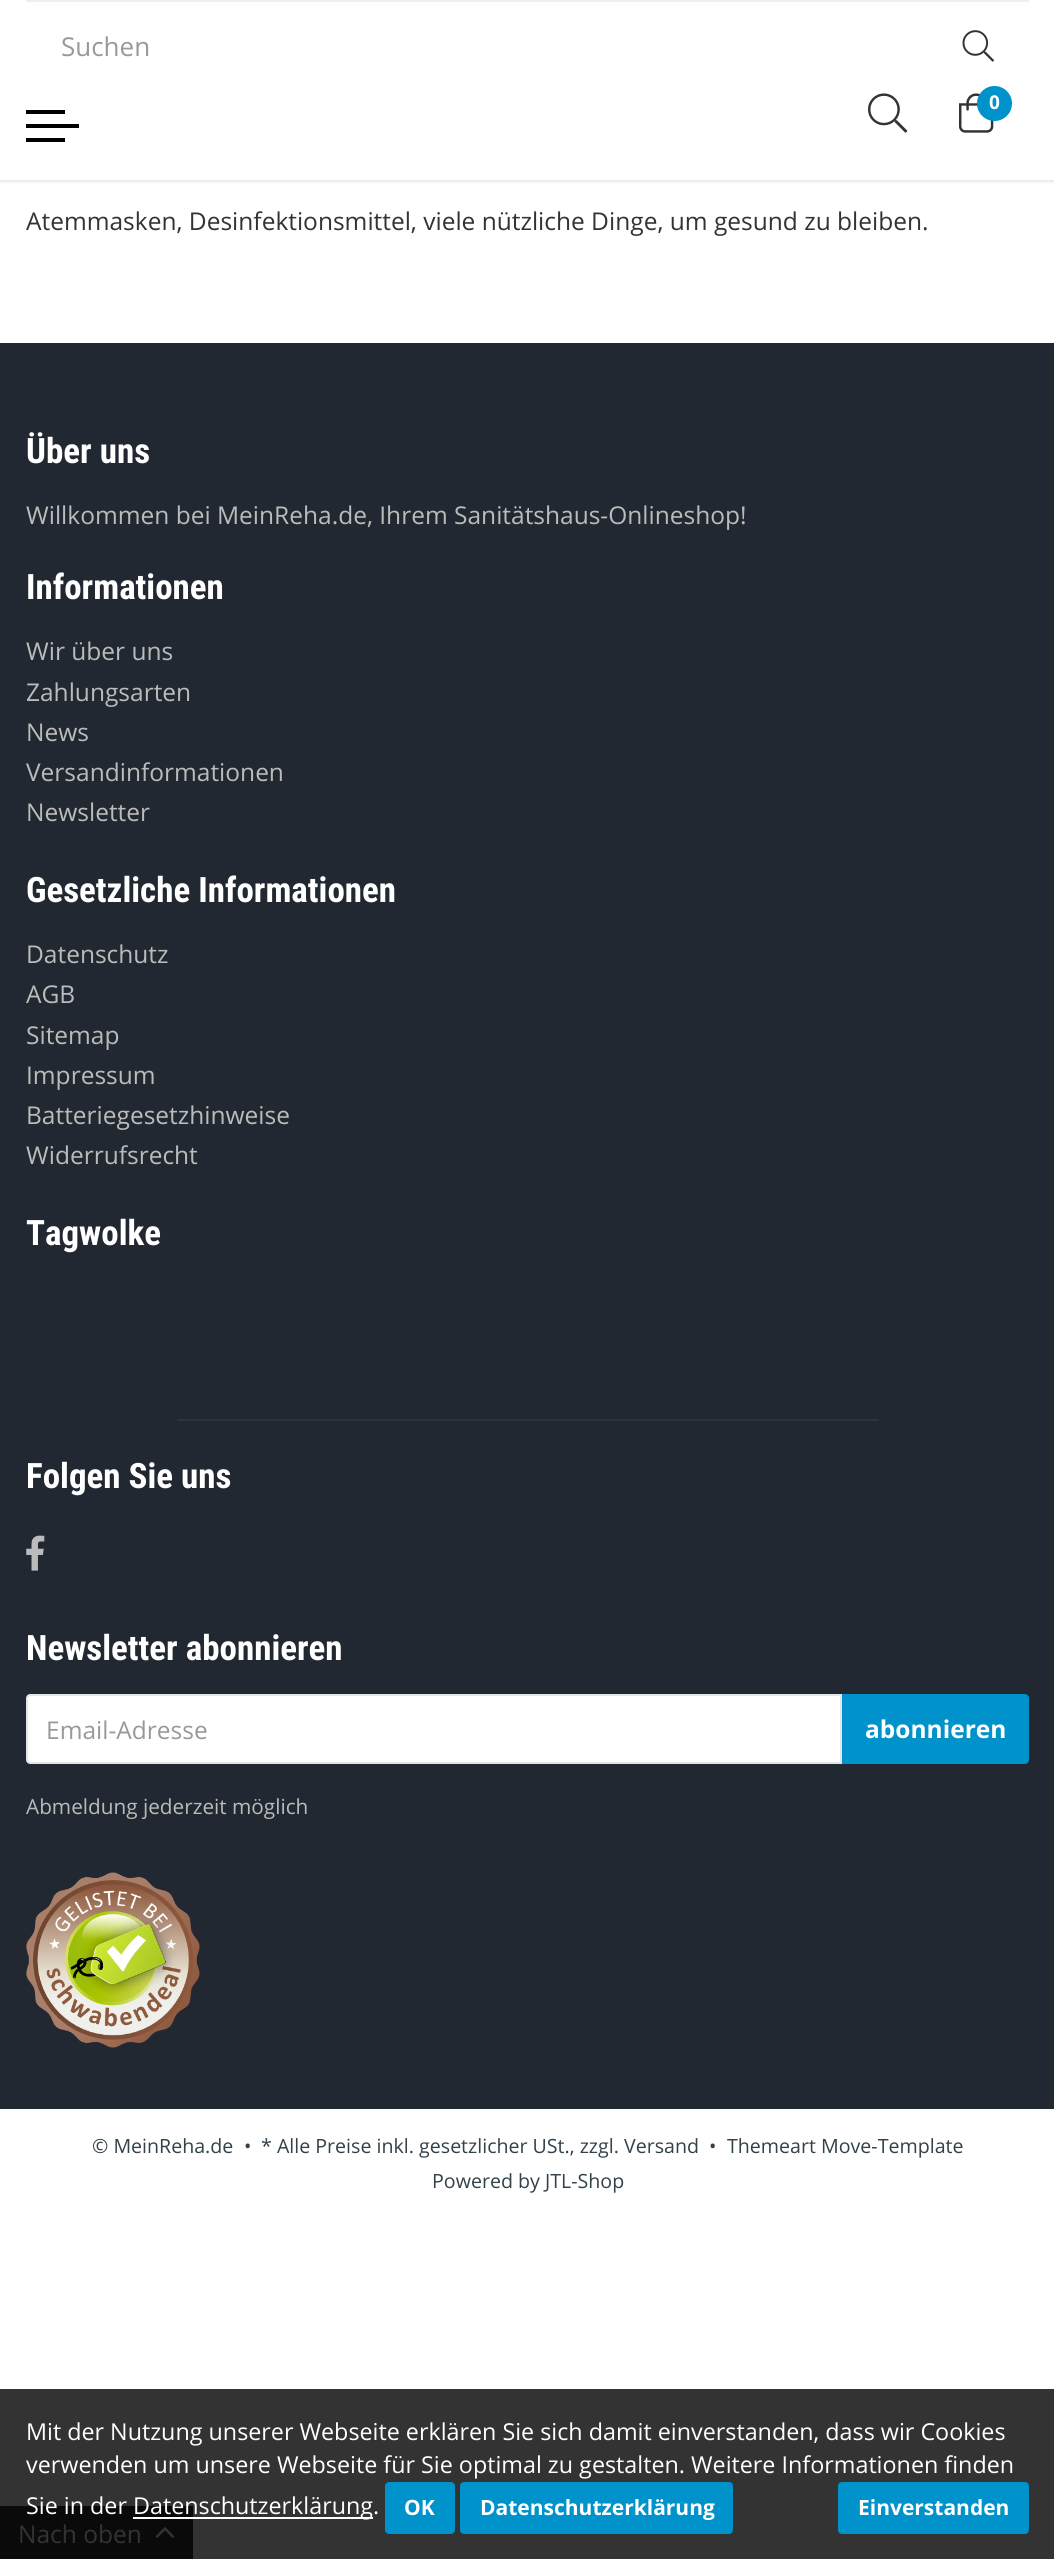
import math
import cairo

surface = cairo.ImageSurface(cairo.FORMAT_RGB24, 1054, 2559)
c = cairo.Context(surface)
options = cairo.FontOptions()
options.set_hint_metrics(cairo.HINT_METRICS_OFF)
options.set_hint_style(cairo.HINT_STYLE_NONE)
c.set_font_options(options)
c.set_miter_limit(4)
def C(code):
 c.set_source_rgb(*(v / 255 for v in bytes.fromhex(code[-6:])))
def F(family, size, italic, bold):
 c.select_font_face(family, cairo.FONT_SLANT_ITALIC if italic else cairo.FONT_SLANT_NORMAL, cairo.FONT_WEIGHT_BOLD if bold else cairo.FONT_WEIGHT_NORMAL)
 c.set_font_size(size)
def T(x, y, s):
 c.move_to(x, y)
 c.show_text(s)
def R(x, y, w, h):
 c.rectangle(x, y, w, h)
 c.fill()
def Q(x, y, w, h, r):
 c.new_sub_path()
 for i, (u, v) in enumerate([(x + w - r, y + h - r), (x + r, y + h - r), (x + r, y + r), (x + w - r, y + r)]):
  c.arc(u, v, r, i * math.pi / 2, (i + 1) * math.pi / 2)
 c.close_path()
def S(x, y, w, h, r, blur, alpha):
 c.push_group_with_content(cairo.CONTENT_ALPHA)
 c.set_operator(cairo.OPERATOR_SOURCE)
 for i in range(15, -16, -2):
  e = blur * i / 6
  if min(w, h) + 2 * e > 0:
   c.set_source_rgba(0, 0, 0, alpha * math.erfc((i - 1) / 8.5) / 2)
   Q(x - e, y - e, w + 2 * e, h + 2 * e, max(0, min(r + e + blur * .6, min(w, h) / 2 + e)))
   c.fill()
 c.mask(c.pop_group())
def I(path, x, y, w, h):
 c.save()
 c.set_source_surface(cairo.ImageSurface.create_from_png(path), x, y)
 c.rectangle(x, y, w, h)
 c.fill()
 c.restore()
C('ffffff')
c.paint()
C('333333')
R(0,2389,1054,170)
C('000000')
S(0,0,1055,180,0,2.5,.2)
C('ffffff')
R(0,0,1054,180)
C('eeeeee')
R(26,0,1003,2)
F('Open Sans',26,0,0)
C('999999')
T(61,56,'Suchen')
I('1.png',962,30,32,32)
I('2.png',868,93,40,40)
I('3.png',959,93,35,40)
C('0092ca')
c.arc(994.5,103.5,17.5,0,2 * math.pi)
c.fill()
F('Open Sans',19,0,1)
C('ffffff')
T(989,109,'0')
C('000000')
R(26,110,39,4)
R(26,124,53,4)
R(26,138,39,4)
F('Open Sans',24.5,0,0)
C('333333')
T(26,230,'Atemmasken, Desinfektionsmittel, viele nützliche Dinge, um gesund zu bleiben.')
C('222831')
R(0,343,1054,1766)
F('Roboto Condensed',35,0,1)
C('ffffff')
T(26,463,'Über uns')
F('Open Sans',24.5,0,0)
C('bbbbbb')
T(26,524,'Willkommen bei MeinReha.de, Ihrem Sanitätshaus-Onlineshop!')
F('Roboto Condensed',35,0,1)
C('ffffff')
T(26,599,'Informationen')
F('Open Sans',24.5,0,0)
C('bbbbbb')
T(26,660,'Wir über uns')
T(26,701,'Zahlungsarten')
T(26,741,'News')
T(26,781,'Versandinformationen')
T(26,821,'Newsletter')
F('Roboto Condensed',35,0,1)
C('ffffff')
T(26,902,'Gesetzliche Informationen')
F('Open Sans',24.5,0,0)
C('bbbbbb')
T(26,963,'Datenschutz')
T(26,1003,'AGB')
T(26,1044,'Sitemap')
T(26,1084,'Impressum')
T(26,1124,'Batteriegesetzhinweise')
T(26,1164,'Widerrufsrecht')
F('Roboto Condensed',35,0,1)
C('ffffff')
T(26,1245,'Tagwolke')
C('2d333b')
R(177,1419,702,2)
C('ffffff')
T(26,1488,'Folgen Sie uns')
I('4.png',26,1535,19,36)
T(26,1660,'Newsletter abonnieren')
c.new_path()
c.move_to(30,1695)
c.line_to(841,1695)
c.line_to(841,1763)
c.line_to(30,1763)
c.curve_to(28.5,1763,27,1761.5,27,1760)
c.line_to(27,1698)
c.curve_to(27,1696.5,28.5,1695,30,1695)
c.close_path()
c.fill_preserve()
C('e3e5e7')
c.stroke()
F('Open Sans',24.5,0,0)
C('999999')
T(46,1739,'Email-Adresse')
C('0092ca')
c.new_path()
c.move_to(843,1695)
c.line_to(1025,1695)
c.curve_to(1026.5,1695,1028,1696.5,1028,1698)
c.line_to(1028,1760)
c.curve_to(1028,1761.5,1026.5,1763,1025,1763)
c.line_to(843,1763)
c.close_path()
c.fill_preserve()
c.stroke()
F('Open Sans',24.5,0,1)
C('ffffff')
T(865,1738,'abonnieren')
F('Open Sans',20.75,0,0)
C('bbbbbb')
T(26,1814,'Abmeldung jederzeit möglich')
I('5.png',26,1872,174,176)
F('Open Sans',19.6,0,0)
C('32424a')
T(92,2153,'© MeinReha.de')
T(244,2153,'•')
T(261,2153,'* Alle Preise inkl. gesetzlicher USt., zzgl.')
T(624,2153,'Versand')
T(709,2153,'•')
T(727,2153,'Themeart Move-Template')
T(432,2188,'Powered by JTL-Shop')
C('0a0a0a')
R(0,2506,193,53)
F('Open Sans',24.5,0,0)
C('333333')
T(18,2543,'Nach oben')
I('6.png',155,2527,20,11)
F('Open Sans',23.3,0,0)
C('ffffff')
T(26,2440,'Mit der Nutzung unserer Webseite erklären Sie sich damit einverstanden, dass wir Cookies')
T(26,2473,'verwenden um unsere Webseite für Sie optimal zu gestalten. Weitere Informationen finden')
T(26,2514,'Sie in der')
R(133,2517,240,2)
T(133,2514,'Datenschutzerklärung.')
C('0092ca')
Q(386,2483,68,50,3)
c.fill_preserve()
c.stroke()
F('Open Sans',21,0,1)
C('ffffff')
T(404,2515,'OK')
C('0092ca')
Q(461,2483,271,50,3)
c.fill_preserve()
c.stroke()
C('ffffff')
T(480,2515,'Datenschutzerklärung')
C('0092ca')
Q(839,2483,189,50,3)
c.fill_preserve()
c.stroke()
C('ffffff')
T(858,2515,'Einverstanden')
surface.write_to_png('o.png')
